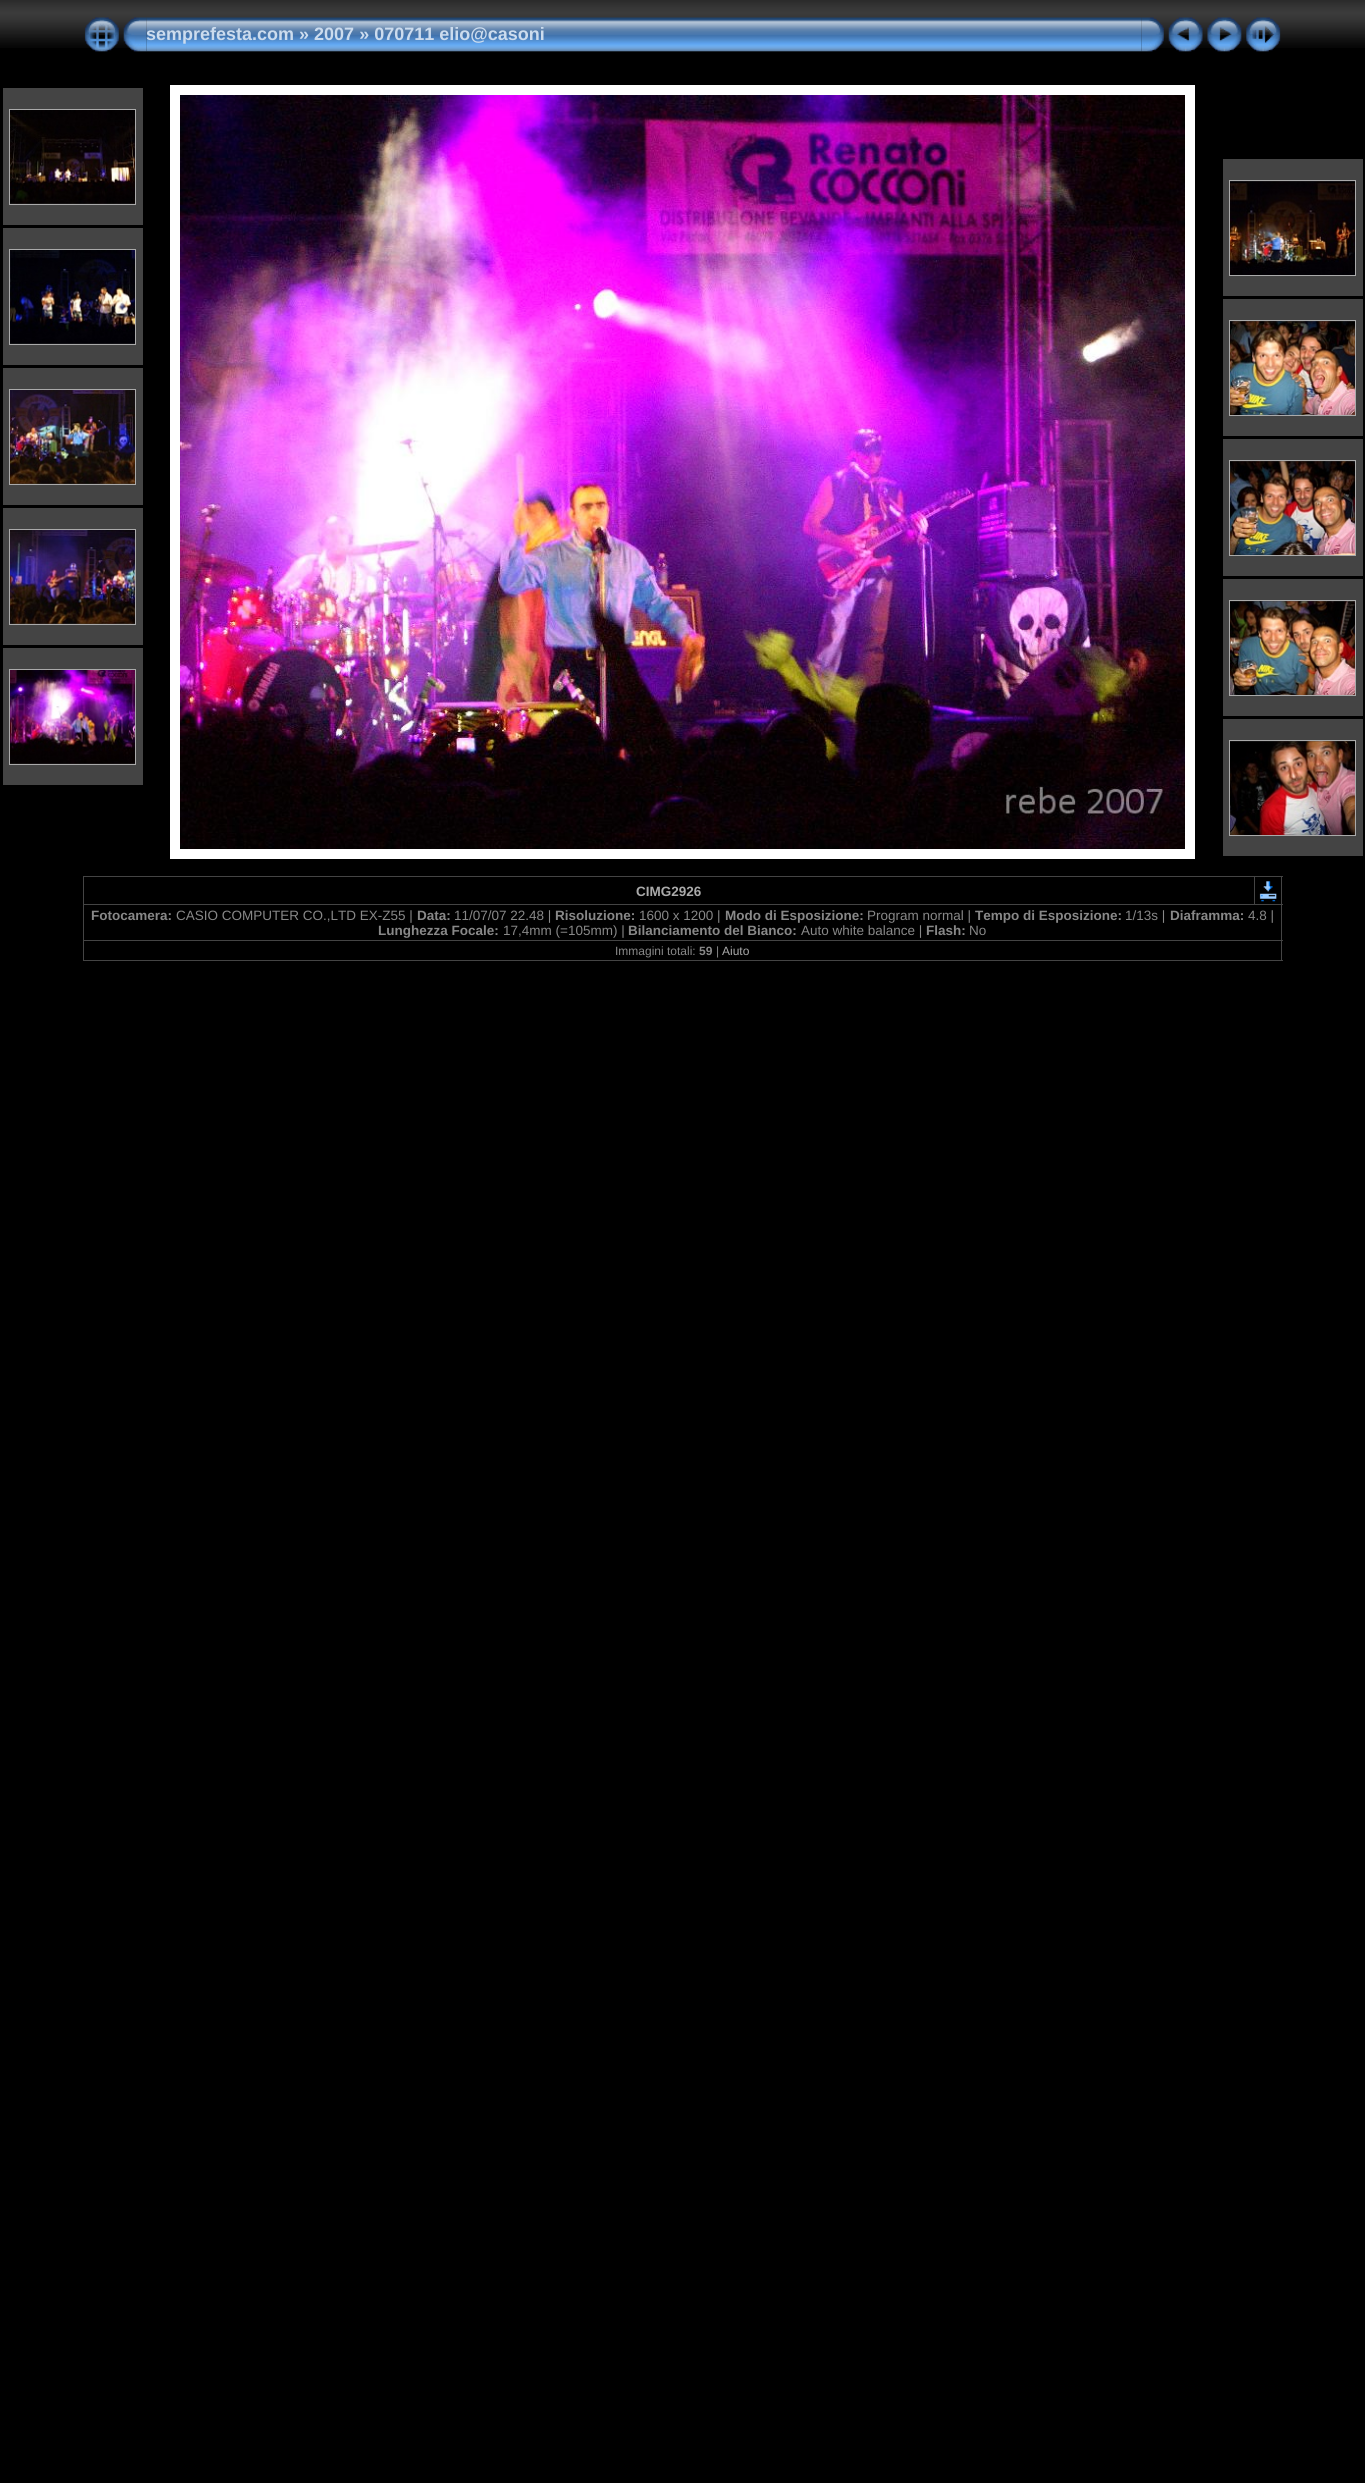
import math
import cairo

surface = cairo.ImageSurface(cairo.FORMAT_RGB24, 1365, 2483)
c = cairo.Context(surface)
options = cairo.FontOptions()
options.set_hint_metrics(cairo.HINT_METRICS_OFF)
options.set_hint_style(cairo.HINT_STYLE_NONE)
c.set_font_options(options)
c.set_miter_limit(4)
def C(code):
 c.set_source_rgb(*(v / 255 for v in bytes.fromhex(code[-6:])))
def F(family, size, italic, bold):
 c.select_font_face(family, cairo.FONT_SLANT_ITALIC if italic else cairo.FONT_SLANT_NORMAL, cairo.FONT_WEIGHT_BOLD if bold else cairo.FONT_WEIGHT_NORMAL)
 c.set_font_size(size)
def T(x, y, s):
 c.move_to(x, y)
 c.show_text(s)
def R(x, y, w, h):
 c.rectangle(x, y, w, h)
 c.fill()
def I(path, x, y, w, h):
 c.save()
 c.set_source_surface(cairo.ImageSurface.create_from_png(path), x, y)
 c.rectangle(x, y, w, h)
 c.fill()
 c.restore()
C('000000')
c.paint()
I('1.png',0,0,1365,48)
I('2.png',84,17,35,35)
I('4.png',146,17,996,35)
I('3.png',123,17,24,35)
F('Liberation Sans',18,0,1)
C('ccdcee')
T(146,40,'semprefesta.com » 2007 » 070711 elio@casoni')
I('5.png',1141,17,23,35)
I('6.png',1168,17,35,35)
I('7.png',1207,17,35,35)
I('8.png',1246,17,35,35)
C('444444')
R(3,88,140,137)
c.rectangle(9.5,109.5,126,95)
C('aaaaaa')
c.set_line_width(1)
c.stroke()
I('9.png',10,110,125,94)
C('444444')
R(3,228,140,137)
c.rectangle(9.5,249.5,126,95)
C('aaaaaa')
c.stroke()
I('10.png',10,250,125,94)
C('444444')
R(3,368,140,137)
c.rectangle(9.5,389.5,126,95)
C('aaaaaa')
c.stroke()
I('11.png',10,390,125,94)
C('444444')
R(3,508,140,137)
c.rectangle(9.5,529.5,126,95)
C('aaaaaa')
c.stroke()
I('12.png',10,530,125,94)
C('444444')
R(3,648,140,137)
c.rectangle(9.5,669.5,126,95)
C('aaaaaa')
c.stroke()
I('13.png',10,670,125,94)
c.rectangle(175,90,1015,764)
C('ffffff')
c.set_line_width(10)
c.stroke()
I('14.png',180,95,1005,754)
C('444444')
R(1223,159,140,137)
c.rectangle(1229.5,180.5,126,95)
C('aaaaaa')
c.set_line_width(1)
c.stroke()
I('15.png',1230,181,125,94)
C('444444')
R(1223,299,140,137)
c.rectangle(1229.5,320.5,126,95)
C('aaaaaa')
c.stroke()
I('16.png',1230,321,125,94)
C('444444')
R(1223,439,140,137)
c.rectangle(1229.5,460.5,126,95)
C('aaaaaa')
c.stroke()
I('17.png',1230,461,125,94)
C('444444')
R(1223,579,140,137)
c.rectangle(1229.5,600.5,126,95)
C('aaaaaa')
c.stroke()
I('18.png',1230,601,125,94)
C('444444')
R(1223,719,140,137)
c.rectangle(1229.5,740.5,126,95)
C('aaaaaa')
c.stroke()
I('19.png',1230,741,125,94)
C('444444')
R(83,876,1200,1)
R(1281,876,1,85)
R(83,960,1200,1)
R(83,876,1,85)
F('Liberation Sans',13.5,0,1)
C('aaaaaa')
T(636,896,'CIMG2926')
C('444444')
R(83,904,1200,1)
R(1254,876,1,29)
I('20.png',1259,881,18,21)
C('888888')
T(91,920,'Fotocamera:')
F('Liberation Sans',13.5,0,0)
T(176,920,'CASIO COMPUTER CO.,LTD EX-Z55 |')
F('Liberation Sans',13.5,0,1)
T(417,920,'Data:')
F('Liberation Sans',13.5,0,0)
T(454,920,'11/07/07 22.48 |')
F('Liberation Sans',13.5,0,1)
T(555,920,'Risoluzione:')
F('Liberation Sans',13.5,0,0)
T(639,920,'1600 x 1200 |')
F('Liberation Sans',13.5,0,1)
T(725,920,'Modo di Esposizione:')
F('Liberation Sans',13.5,0,0)
T(867,920,'Program normal |')
F('Liberation Sans',13.5,0,1)
T(975,920,'Tempo di Esposizione:')
F('Liberation Sans',13.5,0,0)
T(1125,920,'1/13s |')
F('Liberation Sans',13.5,0,1)
T(1170,920,'Diaframma:')
F('Liberation Sans',13.5,0,0)
T(1248,920,'4.8 |')
F('Liberation Sans',13.5,0,1)
T(378,935,'Lunghezza Focale:')
F('Liberation Sans',13.5,0,0)
T(503,935,'17,4mm (=105mm) |')
F('Liberation Sans',13.5,0,1)
T(628,935,'Bilanciamento del Bianco:')
F('Liberation Sans',13.5,0,0)
T(801,935,'Auto white balance |')
F('Liberation Sans',13.5,0,1)
T(926,935,'Flash:')
F('Liberation Sans',13.5,0,0)
T(969,935,'No')
C('444444')
R(83,940,1200,1)
F('Liberation Sans',12,0,0)
C('888888')
T(615,955,'Immagini totali:')
F('Liberation Sans',12,0,1)
T(699,955,'59')
F('Liberation Sans',12,0,0)
T(716,955,'|')
C('aaaaaa')
T(722,955,'Aiuto')
surface.write_to_png('o.png')
